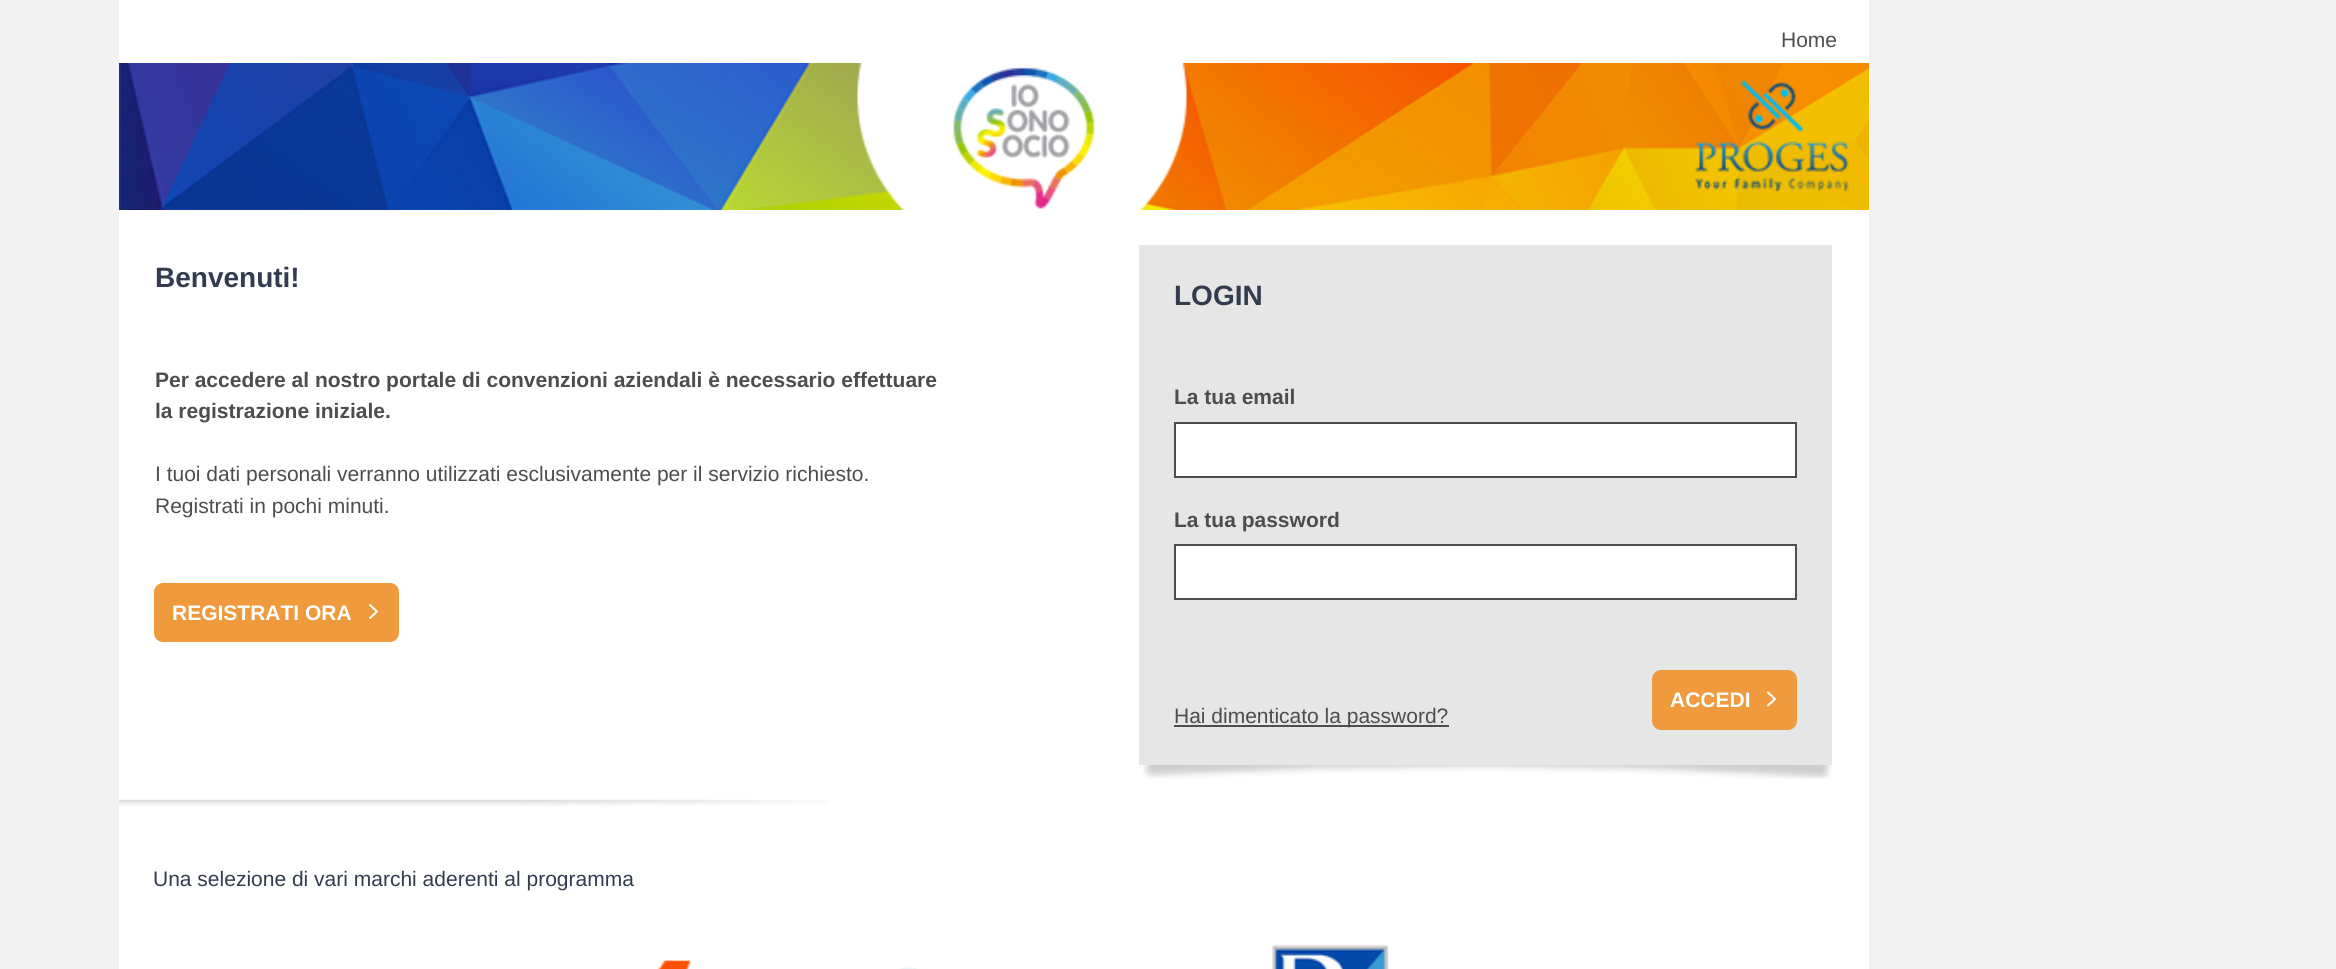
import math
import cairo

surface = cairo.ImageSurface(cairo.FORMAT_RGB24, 2336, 969)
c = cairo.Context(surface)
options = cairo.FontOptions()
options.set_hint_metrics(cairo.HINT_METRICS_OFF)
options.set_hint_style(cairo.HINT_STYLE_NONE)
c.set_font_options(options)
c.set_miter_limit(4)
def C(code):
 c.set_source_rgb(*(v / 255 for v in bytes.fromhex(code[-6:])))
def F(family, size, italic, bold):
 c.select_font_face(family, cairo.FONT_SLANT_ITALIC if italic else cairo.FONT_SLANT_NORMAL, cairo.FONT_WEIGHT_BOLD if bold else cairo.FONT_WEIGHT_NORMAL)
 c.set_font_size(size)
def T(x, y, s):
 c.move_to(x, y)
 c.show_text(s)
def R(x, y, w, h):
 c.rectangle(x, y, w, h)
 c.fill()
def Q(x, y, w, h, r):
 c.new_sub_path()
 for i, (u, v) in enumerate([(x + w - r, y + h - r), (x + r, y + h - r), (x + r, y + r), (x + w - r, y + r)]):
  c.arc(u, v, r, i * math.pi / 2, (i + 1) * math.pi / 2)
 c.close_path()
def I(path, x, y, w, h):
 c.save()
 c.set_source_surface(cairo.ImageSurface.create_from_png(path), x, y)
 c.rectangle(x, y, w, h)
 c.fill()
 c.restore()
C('f2f2f2')
c.paint()
C('ffffff')
R(119,0,1750,63)
F('Liberation Sans',21,0,0)
C('4d4d4d')
T(1781,47,'Home')
I('1.png',119,63,1750,147)
C('ffffff')
R(119,210,1750,759)
F('Liberation Sans',28,0,1)
C('333c4e')
T(155,287,'Benvenuti!')
F('Liberation Sans',21,0,1)
C('4d4d4d')
T(155,387,'Per accedere al nostro portale di convenzioni aziendali è necessario effettuare')
T(155,418,'la registrazione iniziale.')
F('Liberation Sans',21,0,0)
T(155,481,'I tuoi dati personali verranno utilizzati esclusivamente per il servizio richiesto.')
T(155,513,'Registrati in pochi minuti.')
C('f09a3e')
Q(154,583,245,59,9)
c.fill()
F('Liberation Sans',21,0,1)
C('ffffff')
T(172,620,'REGISTRATI ORA')
c.new_path()
c.move_to(370,605)
c.line_to(377,611.5)
c.line_to(370,618)
c.set_line_cap(cairo.LINE_CAP_ROUND)
c.stroke()
C('e6e6e6')
R(1139,245,693,520)
F('Liberation Sans',28,0,1)
C('333c4e')
T(1174,305,'LOGIN')
F('Liberation Sans',21,0,1)
C('4d4d4d')
T(1174,404,'La tua email')
C('ffffff')
c.rectangle(1175,423,621,54)
c.fill_preserve()
C('4d4d4d')
c.set_line_cap(cairo.LINE_CAP_BUTT)
c.stroke()
T(1174,527,'La tua password')
C('ffffff')
c.rectangle(1175,545,621,54)
c.fill_preserve()
C('4d4d4d')
c.stroke()
C('f09a3e')
Q(1652,670,145,60,9)
c.fill()
C('ffffff')
T(1670,707,'ACCEDI')
c.new_path()
c.move_to(1768,692.5)
c.line_to(1775,699)
c.line_to(1768,705.5)
c.set_line_cap(cairo.LINE_CAP_ROUND)
c.stroke()
C('4d4d4d')
R(1174,725,275,2)
F('Liberation Sans',21,0,0)
T(1174,723,'Hai dimenticato la password?')
I('2.png',1142,765,690,14)
I('3.png',119,799,711,7)
C('333c4e')
T(153,886,'Una selezione di vari marchi aderenti al programma')
I('4.png',657,960,35,9)
I('5.png',900,967,17,2)
I('6.png',1272,944,117,25)
surface.write_to_png('o.png')
